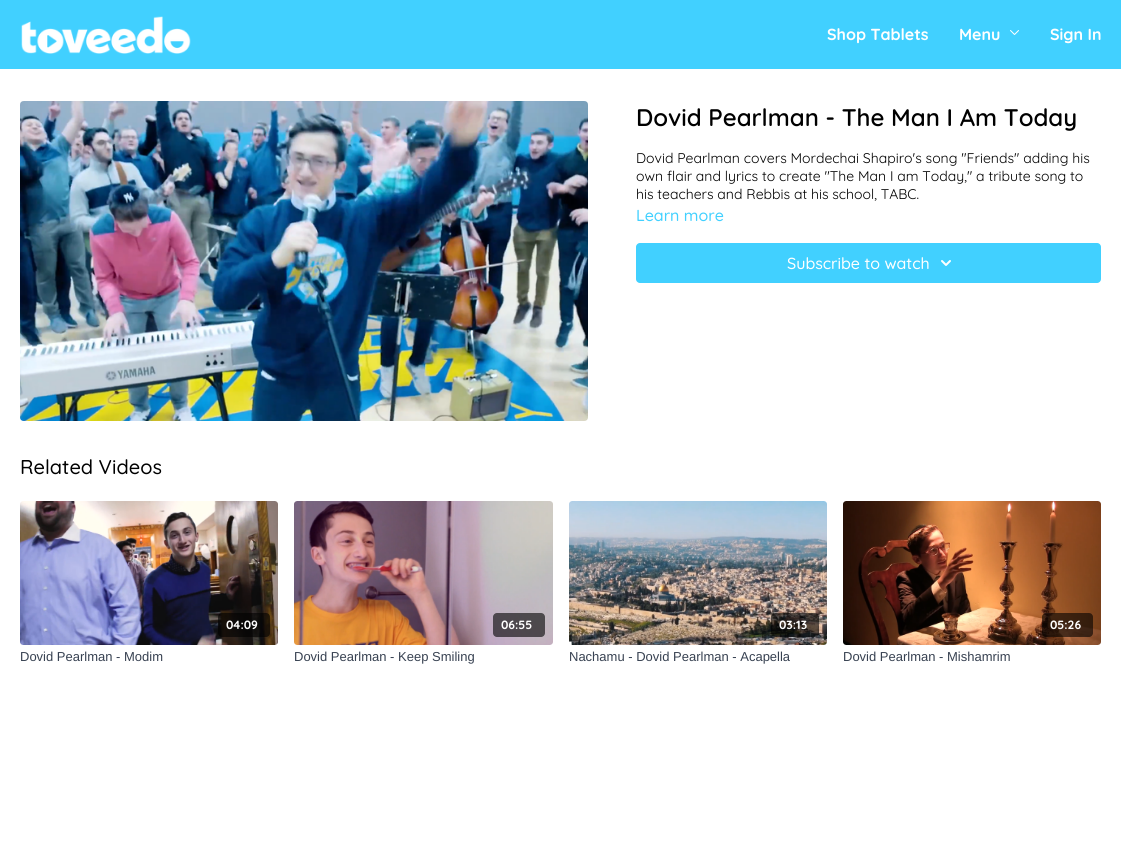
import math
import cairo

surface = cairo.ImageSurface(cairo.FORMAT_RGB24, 1121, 844)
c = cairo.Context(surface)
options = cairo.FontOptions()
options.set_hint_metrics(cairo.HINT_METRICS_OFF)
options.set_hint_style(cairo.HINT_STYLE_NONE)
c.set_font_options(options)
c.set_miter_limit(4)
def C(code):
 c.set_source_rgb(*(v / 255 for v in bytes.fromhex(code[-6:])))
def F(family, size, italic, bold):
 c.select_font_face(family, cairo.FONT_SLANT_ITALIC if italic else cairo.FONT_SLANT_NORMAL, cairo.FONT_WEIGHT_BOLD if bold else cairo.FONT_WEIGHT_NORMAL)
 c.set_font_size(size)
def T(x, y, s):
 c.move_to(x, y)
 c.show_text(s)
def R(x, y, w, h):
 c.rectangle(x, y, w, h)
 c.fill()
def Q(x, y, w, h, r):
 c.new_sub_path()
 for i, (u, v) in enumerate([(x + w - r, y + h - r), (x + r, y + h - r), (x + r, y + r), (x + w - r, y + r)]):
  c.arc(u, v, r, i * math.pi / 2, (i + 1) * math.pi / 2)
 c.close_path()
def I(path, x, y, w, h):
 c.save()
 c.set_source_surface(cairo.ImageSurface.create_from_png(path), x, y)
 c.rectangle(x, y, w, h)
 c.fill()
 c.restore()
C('ffffff')
c.paint()
C('41d0ff')
R(0,0,1121,69)
I('1.png',21,16,170,38)
F('Quicksand',16,0,1)
C('ffffff')
T(827,40,'Shop Tablets')
T(959,40,'Menu')
I('2.png',1010,30,9,5)
T(1050,40,'Sign In')
I('3.png',20,101,568,320)
F('Quicksand SemiBold',24,0,0)
C('000000')
T(636,126,'Dovid Pearlman - The Man I Am Today')
F('Quicksand',14,0,0)
T(636,163,'Dovid Pearlman covers Mordechai Shapiro\'s song "Friends" adding his')
T(636,181,'own flair and lyrics to create "The Man I am Today," a tribute song to')
T(636,199,'his teachers and Rebbis at his school, TABC.')
F('Quicksand Medium',16,0,0)
C('41d0ff')
T(636,221,'Learn more')
Q(636,243,465,40,4)
c.fill()
C('ffffff')
T(787,269,'Subscribe to watch')
I('4.png',941,260,10,6)
F('Quicksand Medium',20,0,0)
C('000000')
T(20,474,'Related Videos')
I('5.png',20,501,258,144)
c.set_source_rgba(0,0,0,0.6)
Q(218,613,52,24,4)
c.fill()
F('Quicksand',12,0,1)
C('ffffff')
T(226,629,'04:09')
F('Liberation Sans',13,0,0)
C('374151')
T(20,661,'Dovid Pearlman - Modim')
I('6.png',294,501,259,144)
c.set_source_rgba(0,0,0,0.6)
Q(493,613,52,24,4)
c.fill()
F('Quicksand',12,0,1)
C('ffffff')
T(501,629,'06:55')
F('Liberation Sans',13,0,0)
C('374151')
T(294,661,'Dovid Pearlman - Keep Smiling')
I('7.png',569,501,258,144)
c.set_source_rgba(0,0,0,0.6)
Q(771,613,48,24,4)
c.fill()
F('Quicksand',12,0,1)
C('ffffff')
T(779,629,'03:13')
F('Liberation Sans',13,0,0)
C('374151')
T(569,661,'Nachamu - Dovid Pearlman - Acapella')
I('8.png',843,501,258,144)
c.set_source_rgba(0,0,0,0.6)
Q(1042,613,51,24,4)
c.fill()
F('Quicksand',12,0,1)
C('ffffff')
T(1050,629,'05:26')
F('Liberation Sans',13,0,0)
C('374151')
T(843,661,'Dovid Pearlman - Mishamrim')
surface.write_to_png('o.png')
